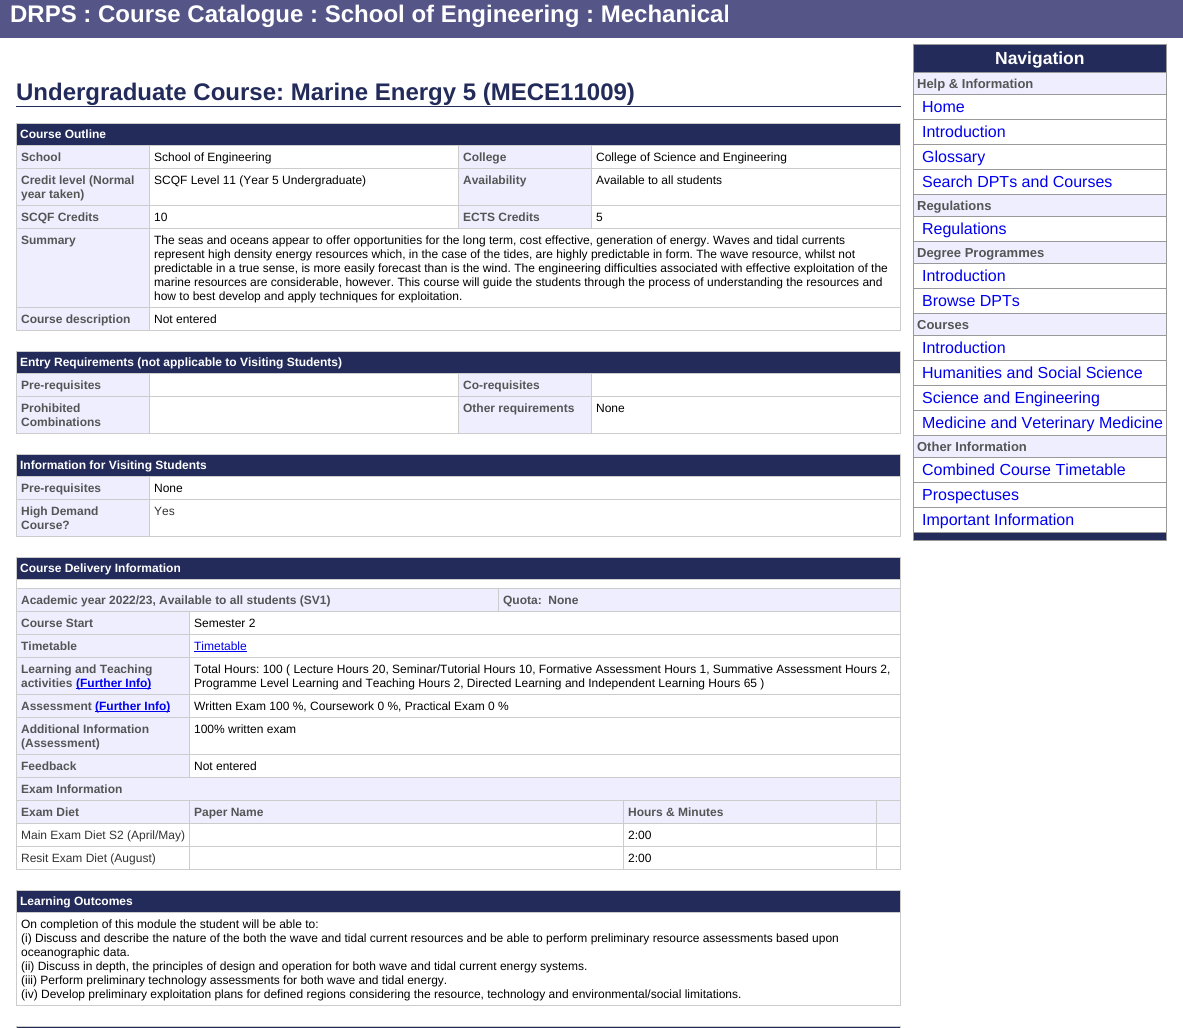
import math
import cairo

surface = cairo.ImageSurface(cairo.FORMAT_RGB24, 1183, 1028)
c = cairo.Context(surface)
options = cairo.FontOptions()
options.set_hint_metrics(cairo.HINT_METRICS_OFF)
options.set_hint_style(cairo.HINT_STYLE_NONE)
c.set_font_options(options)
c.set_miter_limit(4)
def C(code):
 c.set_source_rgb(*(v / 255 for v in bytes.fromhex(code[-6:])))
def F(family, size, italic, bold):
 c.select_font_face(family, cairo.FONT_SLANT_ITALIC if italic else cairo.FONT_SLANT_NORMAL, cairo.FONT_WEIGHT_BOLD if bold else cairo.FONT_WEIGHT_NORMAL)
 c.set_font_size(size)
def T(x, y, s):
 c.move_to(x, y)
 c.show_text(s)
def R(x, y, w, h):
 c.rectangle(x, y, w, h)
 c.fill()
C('ffffff')
c.paint()
C('555588')
R(0,0,1183,38)
F('Liberation Sans',24,0,1)
C('ffffff')
T(10,22,'DRPS : Course Catalogue : School of Engineering : Mechanical')
C('232b5a')
R(16,106,885,1)
T(16,100,'Undergraduate Course: Marine Energy 5 (MECE11009)')
C('cccccc')
R(16,123,885,1)
R(900,123,1,208)
R(16,330,885,1)
R(16,123,1,208)
C('232b5a')
R(17,124,883,21)
F('Liberation Sans',12,0,1)
C('ffffff')
T(20,138,'Course Outline')
C('eeeeff')
R(17,146,132,22)
C('cccccc')
R(591,145,310,1)
R(591,168,310,1)
R(591,205,310,1)
R(149,228,752,1)
R(591,205,1,24)
R(458,205,134,1)
R(591,168,1,38)
R(458,168,134,1)
R(591,145,1,24)
R(458,145,134,1)
R(458,205,1,24)
R(149,205,310,1)
R(458,168,1,38)
R(149,168,310,1)
R(458,145,1,24)
R(149,145,310,1)
R(149,307,752,1)
R(149,307,1,24)
R(16,307,134,1)
R(149,228,1,80)
R(16,228,134,1)
R(149,205,1,24)
R(16,205,134,1)
R(149,168,1,38)
R(16,168,134,1)
R(149,145,1,24)
R(16,145,134,1)
C('555555')
T(21,161,'School')
F('Liberation Sans',12,0,0)
C('000000')
T(154,161,'School of Engineering')
C('eeeeff')
R(459,146,132,22)
F('Liberation Sans',12,0,1)
C('555555')
T(463,161,'College')
F('Liberation Sans',12,0,0)
C('000000')
T(596,161,'College of Science and Engineering')
C('eeeeff')
R(17,169,132,36)
F('Liberation Sans',12,0,1)
C('555555')
T(21,184,'Credit level (Normal')
T(21,198,'year taken)')
F('Liberation Sans',12,0,0)
C('000000')
T(154,184,'SCQF Level 11 (Year 5 Undergraduate)')
C('eeeeff')
R(459,169,132,36)
F('Liberation Sans',12,0,1)
C('555555')
T(463,184,'Availability')
F('Liberation Sans',12,0,0)
C('000000')
T(596,184,'Available to all students')
C('eeeeff')
R(17,206,132,22)
F('Liberation Sans',12,0,1)
C('555555')
T(21,221,'SCQF Credits')
F('Liberation Sans',12,0,0)
C('000000')
T(154,221,'10')
C('eeeeff')
R(459,206,132,22)
F('Liberation Sans',12,0,1)
C('555555')
T(463,221,'ECTS Credits')
F('Liberation Sans',12,0,0)
C('000000')
T(596,221,'5')
C('eeeeff')
R(17,229,132,78)
F('Liberation Sans',12,0,1)
C('555555')
T(21,244,'Summary')
F('Liberation Sans',12,0,0)
C('000000')
T(154,244,'The seas and oceans appear to offer opportunities for the long term, cost effective, generation of energy. Waves and tidal currents')
T(154,258,'represent high density energy resources which, in the case of the tides, are highly predictable in form. The wave resource, whilst not')
T(154,272,'predictable in a true sense, is more easily forecast than is the wind. The engineering difficulties associated with effective exploitation of the')
T(154,286,'marine resources are considerable, however. This course will guide the students through the process of understanding the resources and')
T(154,300,'how to best develop and apply techniques for exploitation.')
C('eeeeff')
R(17,308,132,22)
F('Liberation Sans',12,0,1)
C('555555')
T(21,323,'Course description')
F('Liberation Sans',12,0,0)
C('000000')
T(154,323,'Not entered')
C('cccccc')
R(16,351,885,1)
R(900,351,1,83)
R(16,433,885,1)
R(16,351,1,83)
C('232b5a')
R(17,352,883,21)
F('Liberation Sans',12,0,1)
C('ffffff')
T(20,366,'Entry Requirements (not applicable to Visiting Students)')
C('eeeeff')
R(17,374,132,22)
C('cccccc')
R(591,373,310,1)
R(591,396,310,1)
R(591,396,1,38)
R(458,396,134,1)
R(591,373,1,24)
R(458,373,134,1)
R(458,396,1,38)
R(149,396,310,1)
R(458,373,1,24)
R(149,373,310,1)
R(149,396,1,38)
R(16,396,134,1)
R(149,373,1,24)
R(16,373,134,1)
C('555555')
T(21,389,'Pre-requisites')
C('eeeeff')
R(459,374,132,22)
C('555555')
T(463,389,'Co-requisites')
C('eeeeff')
R(17,397,132,36)
C('555555')
T(21,412,'Prohibited')
T(21,426,'Combinations')
C('eeeeff')
R(459,397,132,36)
C('555555')
T(463,412,'Other requirements')
F('Liberation Sans',12,0,0)
C('000000')
T(596,412,'None')
C('cccccc')
R(16,454,885,1)
R(900,454,1,83)
R(16,536,885,1)
R(16,454,1,83)
C('232b5a')
R(17,455,883,21)
F('Liberation Sans',12,0,1)
C('ffffff')
T(20,469,'Information for Visiting Students')
C('eeeeff')
R(17,477,132,22)
C('cccccc')
R(149,476,752,1)
R(149,499,752,1)
R(149,499,1,38)
R(16,499,134,1)
R(149,476,1,24)
R(16,476,134,1)
C('555555')
T(21,492,'Pre-requisites')
F('Liberation Sans',12,0,0)
C('000000')
T(154,492,'None')
C('eeeeff')
R(17,500,132,36)
F('Liberation Sans',12,0,1)
C('555555')
T(21,515,'High Demand')
T(21,529,'Course?')
F('Liberation Sans',12,0,0)
C('333333')
T(154,515,'Yes')
C('cccccc')
R(16,557,885,1)
R(900,557,1,313)
R(16,869,885,1)
R(16,557,1,313)
C('232b5a')
R(17,558,883,21)
F('Liberation Sans',12,0,1)
C('ffffff')
T(20,572,'Course Delivery Information')
C('cccccc')
R(16,579,885,1)
C('eeeeff')
R(17,589,481,22)
C('cccccc')
R(498,588,403,1)
R(189,611,712,1)
R(498,588,1,24)
R(16,588,483,1)
C('555555')
T(21,604,'Academic year 2022/23, Available to all students (SV1)')
C('eeeeff')
R(499,589,401,22)
C('555555')
T(503,604,'Quota:  None')
C('eeeeff')
R(17,612,172,22)
C('cccccc')
R(189,634,712,1)
R(189,657,712,1)
R(189,694,712,1)
R(189,717,712,1)
R(189,754,712,1)
R(16,777,885,1)
R(189,754,1,24)
R(16,754,174,1)
R(189,717,1,38)
R(16,717,174,1)
R(189,694,1,24)
R(16,694,174,1)
R(189,657,1,38)
R(16,657,174,1)
R(189,634,1,24)
R(16,634,174,1)
R(189,611,1,24)
R(16,611,174,1)
C('555555')
T(21,627,'Course Start')
F('Liberation Sans',12,0,0)
C('000000')
T(194,627,'Semester 2')
C('eeeeff')
R(17,635,172,22)
F('Liberation Sans',12,0,1)
C('555555')
T(21,650,'Timetable')
F('Liberation Sans',12,0,0)
C('0000ee')
T(194,650,'Timetable')
R(194,651,53,1)
C('eeeeff')
R(17,658,172,36)
F('Liberation Sans',12,0,1)
C('555555')
T(21,673,'Learning and Teaching')
T(21,687,'activities')
C('0000ee')
R(76,688,75,1)
T(76,687,'(Further Info)')
F('Liberation Sans',12,0,0)
C('000000')
T(194,673,'Total Hours: 100 ( Lecture Hours 20, Seminar/Tutorial Hours 10, Formative Assessment Hours 1, Summative Assessment Hours 2,')
T(194,687,'Programme Level Learning and Teaching Hours 2, Directed Learning and Independent Learning Hours 65 )')
C('eeeeff')
R(17,695,172,22)
F('Liberation Sans',12,0,1)
C('555555')
T(21,710,'Assessment')
C('0000ee')
R(95,711,75,1)
T(95,710,'(Further Info)')
F('Liberation Sans',12,0,0)
C('000000')
T(194,710,'Written Exam 100 %, Coursework 0 %, Practical Exam 0 %')
C('eeeeff')
R(17,718,172,36)
F('Liberation Sans',12,0,1)
C('555555')
T(21,733,'Additional Information')
T(21,747,'(Assessment)')
F('Liberation Sans',12,0,0)
C('000000')
T(194,733,'100% written exam')
C('eeeeff')
R(17,755,172,22)
F('Liberation Sans',12,0,1)
C('555555')
T(21,770,'Feedback')
F('Liberation Sans',12,0,0)
C('000000')
T(194,770,'Not entered')
C('eeeeff')
R(17,778,883,22)
F('Liberation Sans',12,0,1)
C('555555')
T(21,793,'Exam Information')
C('eeeeff')
R(17,801,172,22)
C('cccccc')
R(876,800,25,1)
R(876,823,25,1)
R(876,846,25,1)
R(876,846,1,24)
R(623,846,254,1)
R(876,823,1,24)
R(623,823,254,1)
R(876,800,1,24)
R(623,800,254,1)
R(623,846,1,24)
R(189,846,435,1)
R(623,823,1,24)
R(189,823,435,1)
R(623,800,1,24)
R(189,800,435,1)
R(189,846,1,24)
R(16,846,174,1)
R(189,823,1,24)
R(16,823,174,1)
R(189,800,1,24)
R(16,800,174,1)
C('555555')
T(21,816,'Exam Diet')
C('eeeeff')
R(190,801,433,22)
C('555555')
T(194,816,'Paper Name')
C('eeeeff')
R(624,801,252,22)
C('555555')
T(628,816,'Hours & Minutes')
C('eeeeff')
R(877,801,23,22)
F('Liberation Sans',12,0,0)
C('333333')
T(21,839,'Main Exam Diet S2 (April/May)')
C('000000')
T(628,839,'2:00')
C('333333')
T(21,862,'Resit Exam Diet (August)')
C('000000')
T(628,862,'2:00')
C('cccccc')
R(16,890,885,1)
R(900,890,1,116)
R(16,1005,885,1)
R(16,890,1,116)
C('232b5a')
R(17,891,883,21)
F('Liberation Sans',12,0,1)
C('ffffff')
T(20,905,'Learning Outcomes')
C('cccccc')
R(16,912,885,1)
F('Liberation Sans',12,0,0)
C('000000')
T(21,928,'On completion of this module the student will be able to:')
T(21,942,'(i) Discuss and describe the nature of the both the wave and tidal current resources and be able to perform preliminary resource assessments based upon')
T(21,956,'oceanographic data.')
T(21,970,'(ii) Discuss in depth, the principles of design and operation for both wave and tidal current energy systems.')
T(21,984,'(iii) Perform preliminary technology assessments for both wave and tidal energy.')
T(21,998,'(iv) Develop preliminary exploitation plans for defined regions considering the resource, technology and environmental/social limitations.')
C('cccccc')
R(16,1026,885,1)
C('232b5a')
R(16,1027,885,1)
C('cccccc')
R(900,1026,1,2)
R(16,1026,1,2)
C('999999')
R(913,44,254,497)
C('232b5a')
R(914,45,252,27)
F('Liberation Sans',17.5,0,1)
C('ffffff')
T(995,64,'Navigation')
C('eeeeff')
R(914,73,252,21)
F('Liberation Sans',13,0,1)
C('555555')
T(917,88,'Help & Information')
C('ffffff')
R(914,95,252,24)
F('Liberation Sans',16,0,0)
C('0000ee')
T(922,112,'Home')
C('ffffff')
R(914,120,252,24)
C('0000ee')
T(922,137,'Introduction')
C('ffffff')
R(914,145,252,24)
C('0000ee')
T(922,162,'Glossary')
C('ffffff')
R(914,170,252,24)
C('0000ee')
T(922,187,'Search DPTs and Courses')
C('eeeeff')
R(914,195,252,21)
F('Liberation Sans',13,0,1)
C('555555')
T(917,210,'Regulations')
C('ffffff')
R(914,217,252,24)
F('Liberation Sans',16,0,0)
C('0000ee')
T(922,234,'Regulations')
C('eeeeff')
R(914,242,252,21)
F('Liberation Sans',13,0,1)
C('555555')
T(917,257,'Degree Programmes')
C('ffffff')
R(914,264,252,24)
F('Liberation Sans',16,0,0)
C('0000ee')
T(922,281,'Introduction')
C('ffffff')
R(914,289,252,24)
C('0000ee')
T(922,306,'Browse DPTs')
C('eeeeff')
R(914,314,252,21)
F('Liberation Sans',13,0,1)
C('555555')
T(917,329,'Courses')
C('ffffff')
R(914,336,252,24)
F('Liberation Sans',16,0,0)
C('0000ee')
T(922,353,'Introduction')
C('ffffff')
R(914,361,252,24)
C('0000ee')
T(922,378,'Humanities and Social Science')
C('ffffff')
R(914,386,252,24)
C('0000ee')
T(922,403,'Science and Engineering')
C('ffffff')
R(914,411,252,24)
C('0000ee')
T(922,428,'Medicine and Veterinary Medicine')
C('eeeeff')
R(914,436,252,21)
F('Liberation Sans',13,0,1)
C('555555')
T(917,451,'Other Information')
C('ffffff')
R(914,458,252,24)
F('Liberation Sans',16,0,0)
C('0000ee')
T(922,475,'Combined Course Timetable')
C('ffffff')
R(914,483,252,24)
C('0000ee')
T(922,500,'Prospectuses')
C('ffffff')
R(914,508,252,24)
C('0000ee')
T(922,525,'Important Information')
C('232b5a')
R(914,533,252,7)
surface.write_to_png('o.png')
